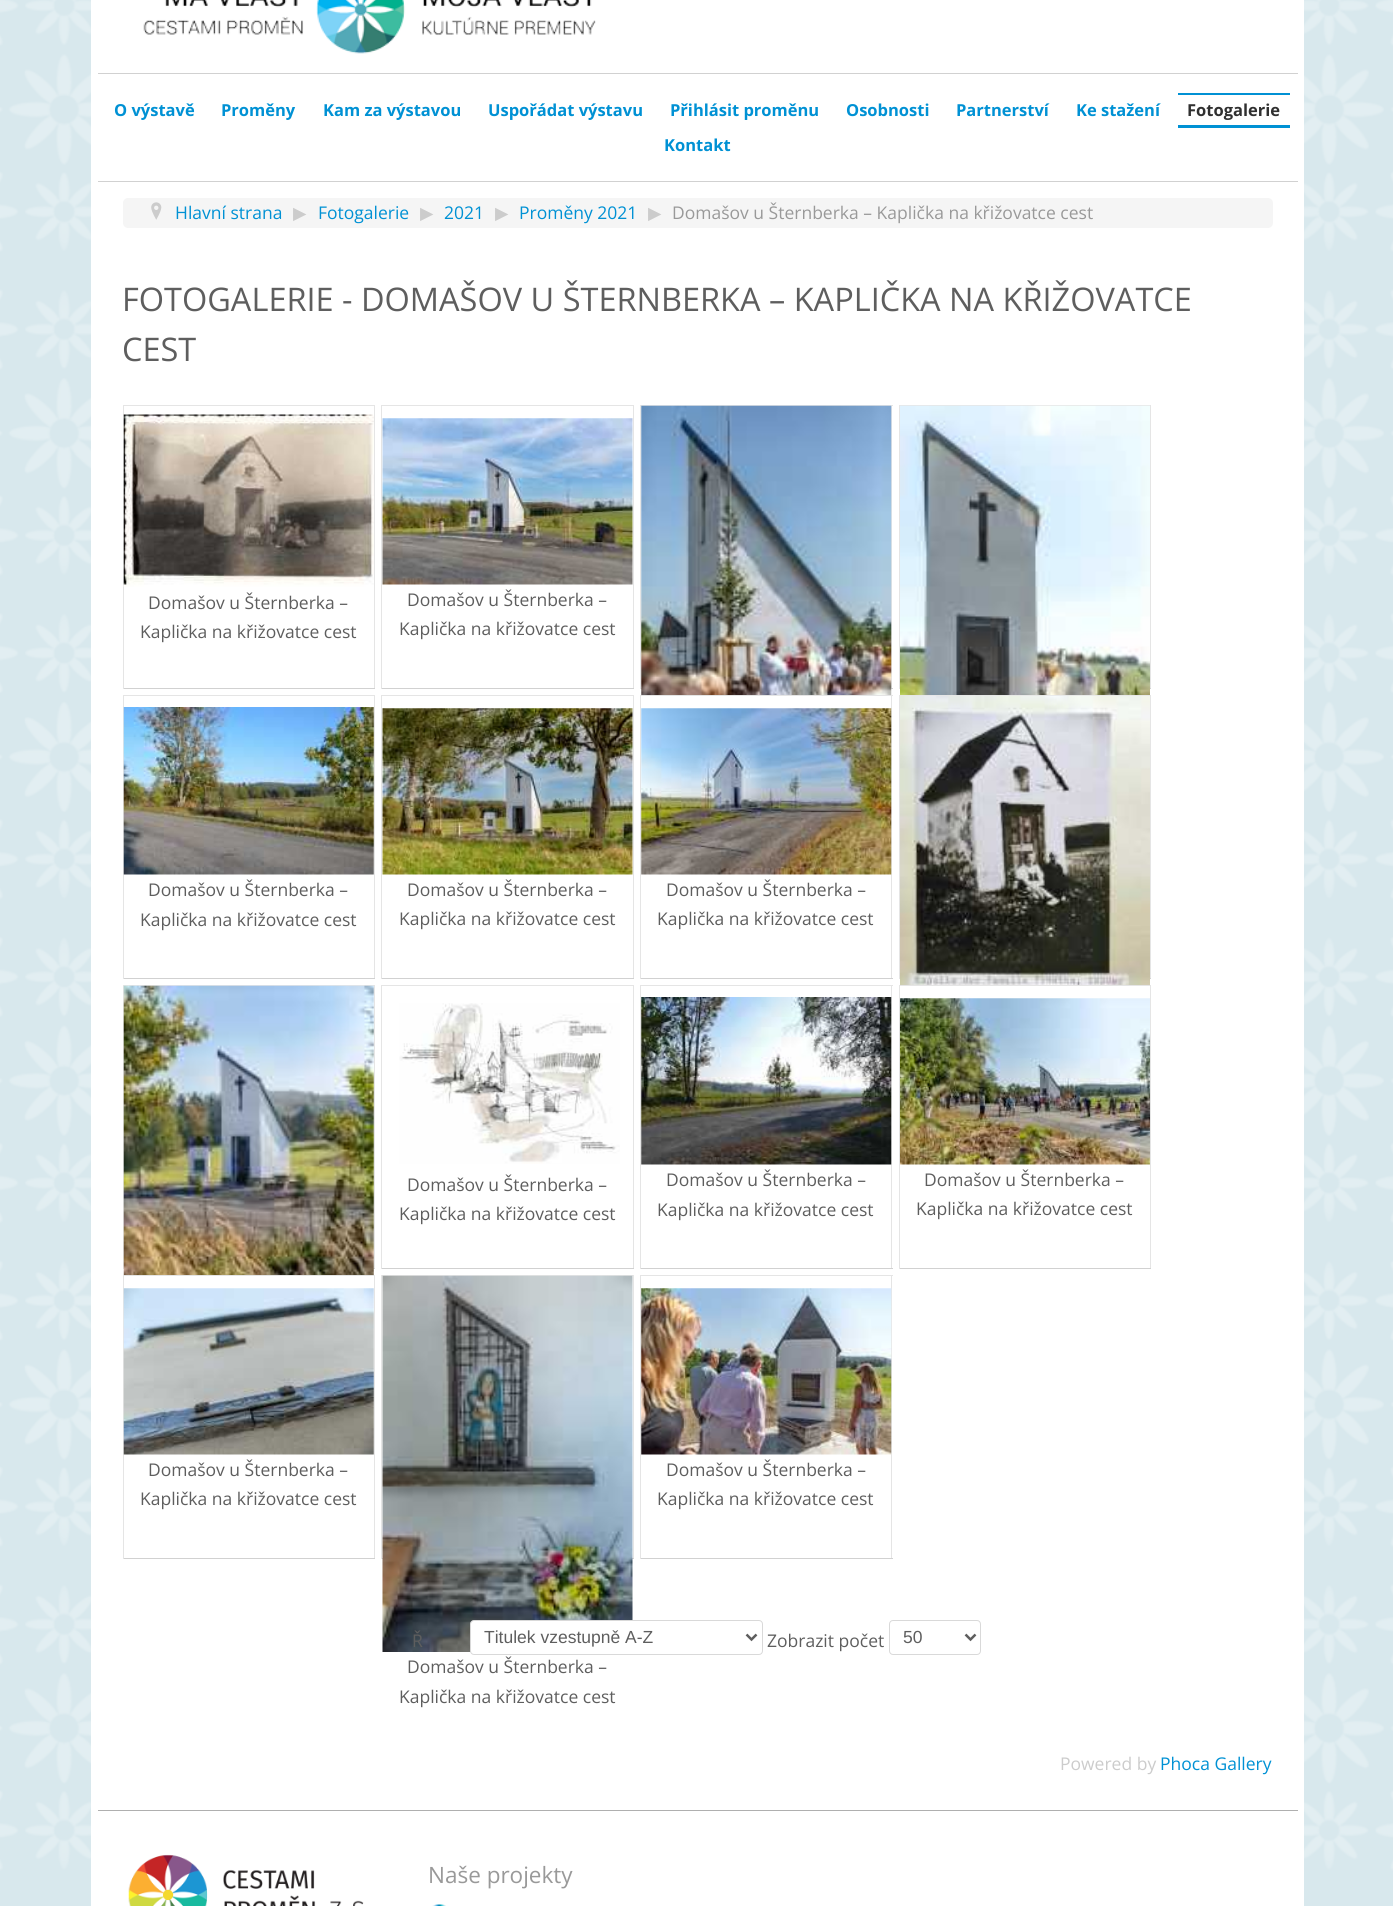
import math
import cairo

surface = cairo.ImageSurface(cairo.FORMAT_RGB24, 1393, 1906)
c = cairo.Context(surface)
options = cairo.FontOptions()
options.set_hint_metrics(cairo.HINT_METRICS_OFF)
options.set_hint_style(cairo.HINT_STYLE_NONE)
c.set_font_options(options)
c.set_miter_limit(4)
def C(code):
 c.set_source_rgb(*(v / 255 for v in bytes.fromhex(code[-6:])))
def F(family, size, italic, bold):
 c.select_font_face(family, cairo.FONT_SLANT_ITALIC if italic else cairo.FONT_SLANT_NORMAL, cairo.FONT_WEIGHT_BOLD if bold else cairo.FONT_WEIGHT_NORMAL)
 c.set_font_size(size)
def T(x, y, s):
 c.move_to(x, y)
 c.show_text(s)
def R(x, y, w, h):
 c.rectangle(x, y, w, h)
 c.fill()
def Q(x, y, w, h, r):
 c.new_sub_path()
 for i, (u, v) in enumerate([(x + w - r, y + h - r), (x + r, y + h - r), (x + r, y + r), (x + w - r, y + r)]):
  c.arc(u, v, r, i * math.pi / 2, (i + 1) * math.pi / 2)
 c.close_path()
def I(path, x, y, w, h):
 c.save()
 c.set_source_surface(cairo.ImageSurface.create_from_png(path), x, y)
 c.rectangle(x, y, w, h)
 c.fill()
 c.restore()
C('d8e8ed')
c.paint()
I('1.png',0,0,1393,1871)
C('ffffff')
R(91,0,1213,1906)
I('2.png',143,0,453,54)
C('d1d1d1')
R(98,73,1200,1)
R(98,181,1200,1)
F('Open Sans',16.5,0,1)
C('0091d4')
T(114,116,'O výstavě')
T(221,116,'Proměny')
T(323,116,'Kam za výstavou')
T(488,116,'Uspořádat výstavu')
T(670,116,'Přihlásit proměnu')
T(846,116,'Osobnosti')
T(956,116,'Partnerství')
T(1076,116,'Ke stažení')
R(1178,93,112,2)
R(1178,125,112,3)
C('303030')
T(1187,116,'Fotogalerie')
C('0091d4')
T(664,151,'Kontakt')
C('f5f5f5')
Q(123,198,1150,30,5)
c.fill()
I('3.png',151,202,11,18)
F('Open Sans',17.5,0,0)
C('0091d4')
T(175,219,'Hlavní strana')
F('DejaVu Sans',17.5,0,0)
C('cccccc')
T(293,219,'▶')
F('Open Sans',17.5,0,0)
C('0091d4')
T(318,219,'Fotogalerie')
F('DejaVu Sans',17.5,0,0)
C('cccccc')
T(420,219,'▶')
F('Open Sans',17.5,0,0)
C('0091d4')
T(444,219,'2021')
F('DejaVu Sans',17.5,0,0)
C('cccccc')
T(495,219,'▶')
F('Open Sans',17.5,0,0)
C('0091d4')
T(519,219,'Proměny 2021')
F('DejaVu Sans',17.5,0,0)
C('cccccc')
T(648,219,'▶')
F('Open Sans',17.5,0,0)
C('999999')
T(672,219,'Domašov u Šternberka – Kaplička na křižovatce cest')
F('Open Sans',32.5,0,0)
C('5e5e5e')
T(122,311,'FOTOGALERIE - DOMAŠOV U ŠTERNBERKA – KAPLIČKA NA KŘIŽOVATCE')
T(122,361,'CEST')
C('e5e5e5')
R(123,405,252,1)
R(374,405,1,284)
C('d1d1d1')
R(123,688,252,1)
C('e5e5e5')
R(123,405,1,284)
I('4.png',123,414,251,173)
F('Open Sans',17.5,0,0)
C('5e5e5e')
T(148,609,'Domašov u Šternberka –')
T(140,638,'Kaplička na křižovatce cest')
C('e5e5e5')
R(381,405,253,1)
R(633,405,1,284)
C('d1d1d1')
R(381,688,253,1)
C('e5e5e5')
R(381,405,1,284)
I('5.png',382,418,251,167)
C('5e5e5e')
T(407,606,'Domašov u Šternberka –')
T(399,635,'Kaplička na křižovatce cest')
C('e5e5e5')
R(640,405,253,1)
R(891,405,1,284)
C('d1d1d1')
R(640,688,253,1)
C('e5e5e5')
R(640,405,1,284)
I('6.png',641,405,251,290)
R(899,405,252,1)
R(1150,405,1,284)
C('d1d1d1')
R(1150,688,1,1)
C('e5e5e5')
R(899,405,1,284)
I('7.png',900,405,250,290)
R(123,695,252,1)
R(374,695,1,284)
C('d1d1d1')
R(123,978,252,1)
C('e5e5e5')
R(123,695,1,284)
I('8.png',123,707,251,168)
C('5e5e5e')
T(148,896,'Domašov u Šternberka –')
T(140,926,'Kaplička na křižovatce cest')
C('e5e5e5')
R(381,695,253,1)
R(633,695,1,284)
C('d1d1d1')
R(381,978,253,1)
C('e5e5e5')
R(381,695,1,284)
I('9.png',382,708,251,167)
C('5e5e5e')
T(407,896,'Domašov u Šternberka –')
T(399,925,'Kaplička na křižovatce cest')
C('e5e5e5')
R(640,695,253,1)
R(891,695,1,284)
C('d1d1d1')
R(640,978,253,1)
C('e5e5e5')
R(640,695,1,284)
I('10.png',641,708,251,167)
C('5e5e5e')
T(666,896,'Domašov u Šternberka –')
T(657,925,'Kaplička na křižovatce cest')
C('e5e5e5')
R(899,695,252,1)
R(1150,695,1,284)
C('d1d1d1')
R(1150,978,1,1)
C('e5e5e5')
R(899,695,1,284)
I('11.png',900,695,250,290)
R(123,985,252,1)
R(374,985,1,284)
C('d1d1d1')
R(373,1268,2,1)
C('e5e5e5')
R(123,985,1,284)
I('12.png',123,985,251,290)
R(381,985,253,1)
R(633,985,1,284)
C('d1d1d1')
R(381,1268,253,1)
C('e5e5e5')
R(381,985,1,284)
I('13.png',399,1003,221,161)
C('5e5e5e')
T(407,1191,'Domašov u Šternberka –')
T(399,1220,'Kaplička na křižovatce cest')
C('e5e5e5')
R(640,985,253,1)
R(891,985,1,284)
C('d1d1d1')
R(640,1268,253,1)
C('e5e5e5')
R(640,985,1,284)
I('14.png',641,997,251,168)
C('5e5e5e')
T(666,1186,'Domašov u Šternberka –')
T(657,1216,'Kaplička na křižovatce cest')
C('e5e5e5')
R(899,985,252,1)
R(1150,985,1,284)
C('d1d1d1')
R(899,1268,252,1)
C('e5e5e5')
R(899,985,1,284)
I('15.png',900,998,250,167)
C('5e5e5e')
T(924,1186,'Domašov u Šternberka –')
T(916,1215,'Kaplička na křižovatce cest')
C('e5e5e5')
R(123,1275,252,1)
R(374,1275,1,284)
C('d1d1d1')
R(123,1558,252,1)
C('e5e5e5')
R(123,1275,1,284)
I('16.png',123,1288,251,167)
C('5e5e5e')
T(148,1476,'Domašov u Šternberka –')
T(140,1505,'Kaplička na křižovatce cest')
C('e5e5e5')
R(640,1275,253,1)
R(891,1275,1,284)
C('d1d1d1')
R(640,1558,253,1)
C('e5e5e5')
R(640,1275,1,284)
I('17.png',641,1288,251,167)
C('5e5e5e')
T(666,1476,'Domašov u Šternberka –')
T(657,1505,'Kaplička na křižovatce cest')
C('e5e5e5')
R(381,1275,253,1)
R(633,1275,1,284)
C('d1d1d1')
R(381,1558,253,1)
C('e5e5e5')
R(381,1275,1,284)
I('18.png',382,1275,251,377)
C('5e5e5e')
T(407,1673,'Domašov u Šternberka –')
T(399,1703,'Kaplička na křižovatce cest')
T(412,1647,'Ř')
C('ffffff')
Q(470.5,1620.5,292,34,3.5)
c.fill_preserve()
C('d9d9d9')
c.set_line_width(1)
c.stroke()
c.new_path()
c.move_to(746.5,1634.5)
c.line_to(751.5,1639.5)
c.line_to(756.5,1634.5)
C('5e5e5e')
c.set_line_width(2.5)
c.stroke()
F('Liberation Sans',17.5,0,0)
T(484,1643,'Titulek vzestupně A-Z')
F('Open Sans',17.5,0,0)
T(767,1647,'Zobrazit počet')
Q(889.5,1620.5,91,34,3.5)
C('d9d9d9')
c.set_line_width(1)
c.stroke()
c.new_path()
c.move_to(965.5,1634.5)
c.line_to(970.5,1639.5)
c.line_to(975.5,1634.5)
C('5e5e5e')
c.set_line_width(2.5)
c.stroke()
F('Liberation Sans',17.5,0,0)
T(903,1643,'50')
F('Open Sans',17.5,0,0)
C('cccccc')
T(1060,1770,'Powered by')
C('0091d4')
T(1160,1770,'Phoca Gallery')
C('afafaf')
R(98,1810,1200,1)
I('19.png',128,1854,236,52)
F('Open Sans',22.5,0,0)
C('999999')
T(428,1883,'Naše projekty')
I('20.png',432,1904,14,2)
surface.write_to_png('o.png')
